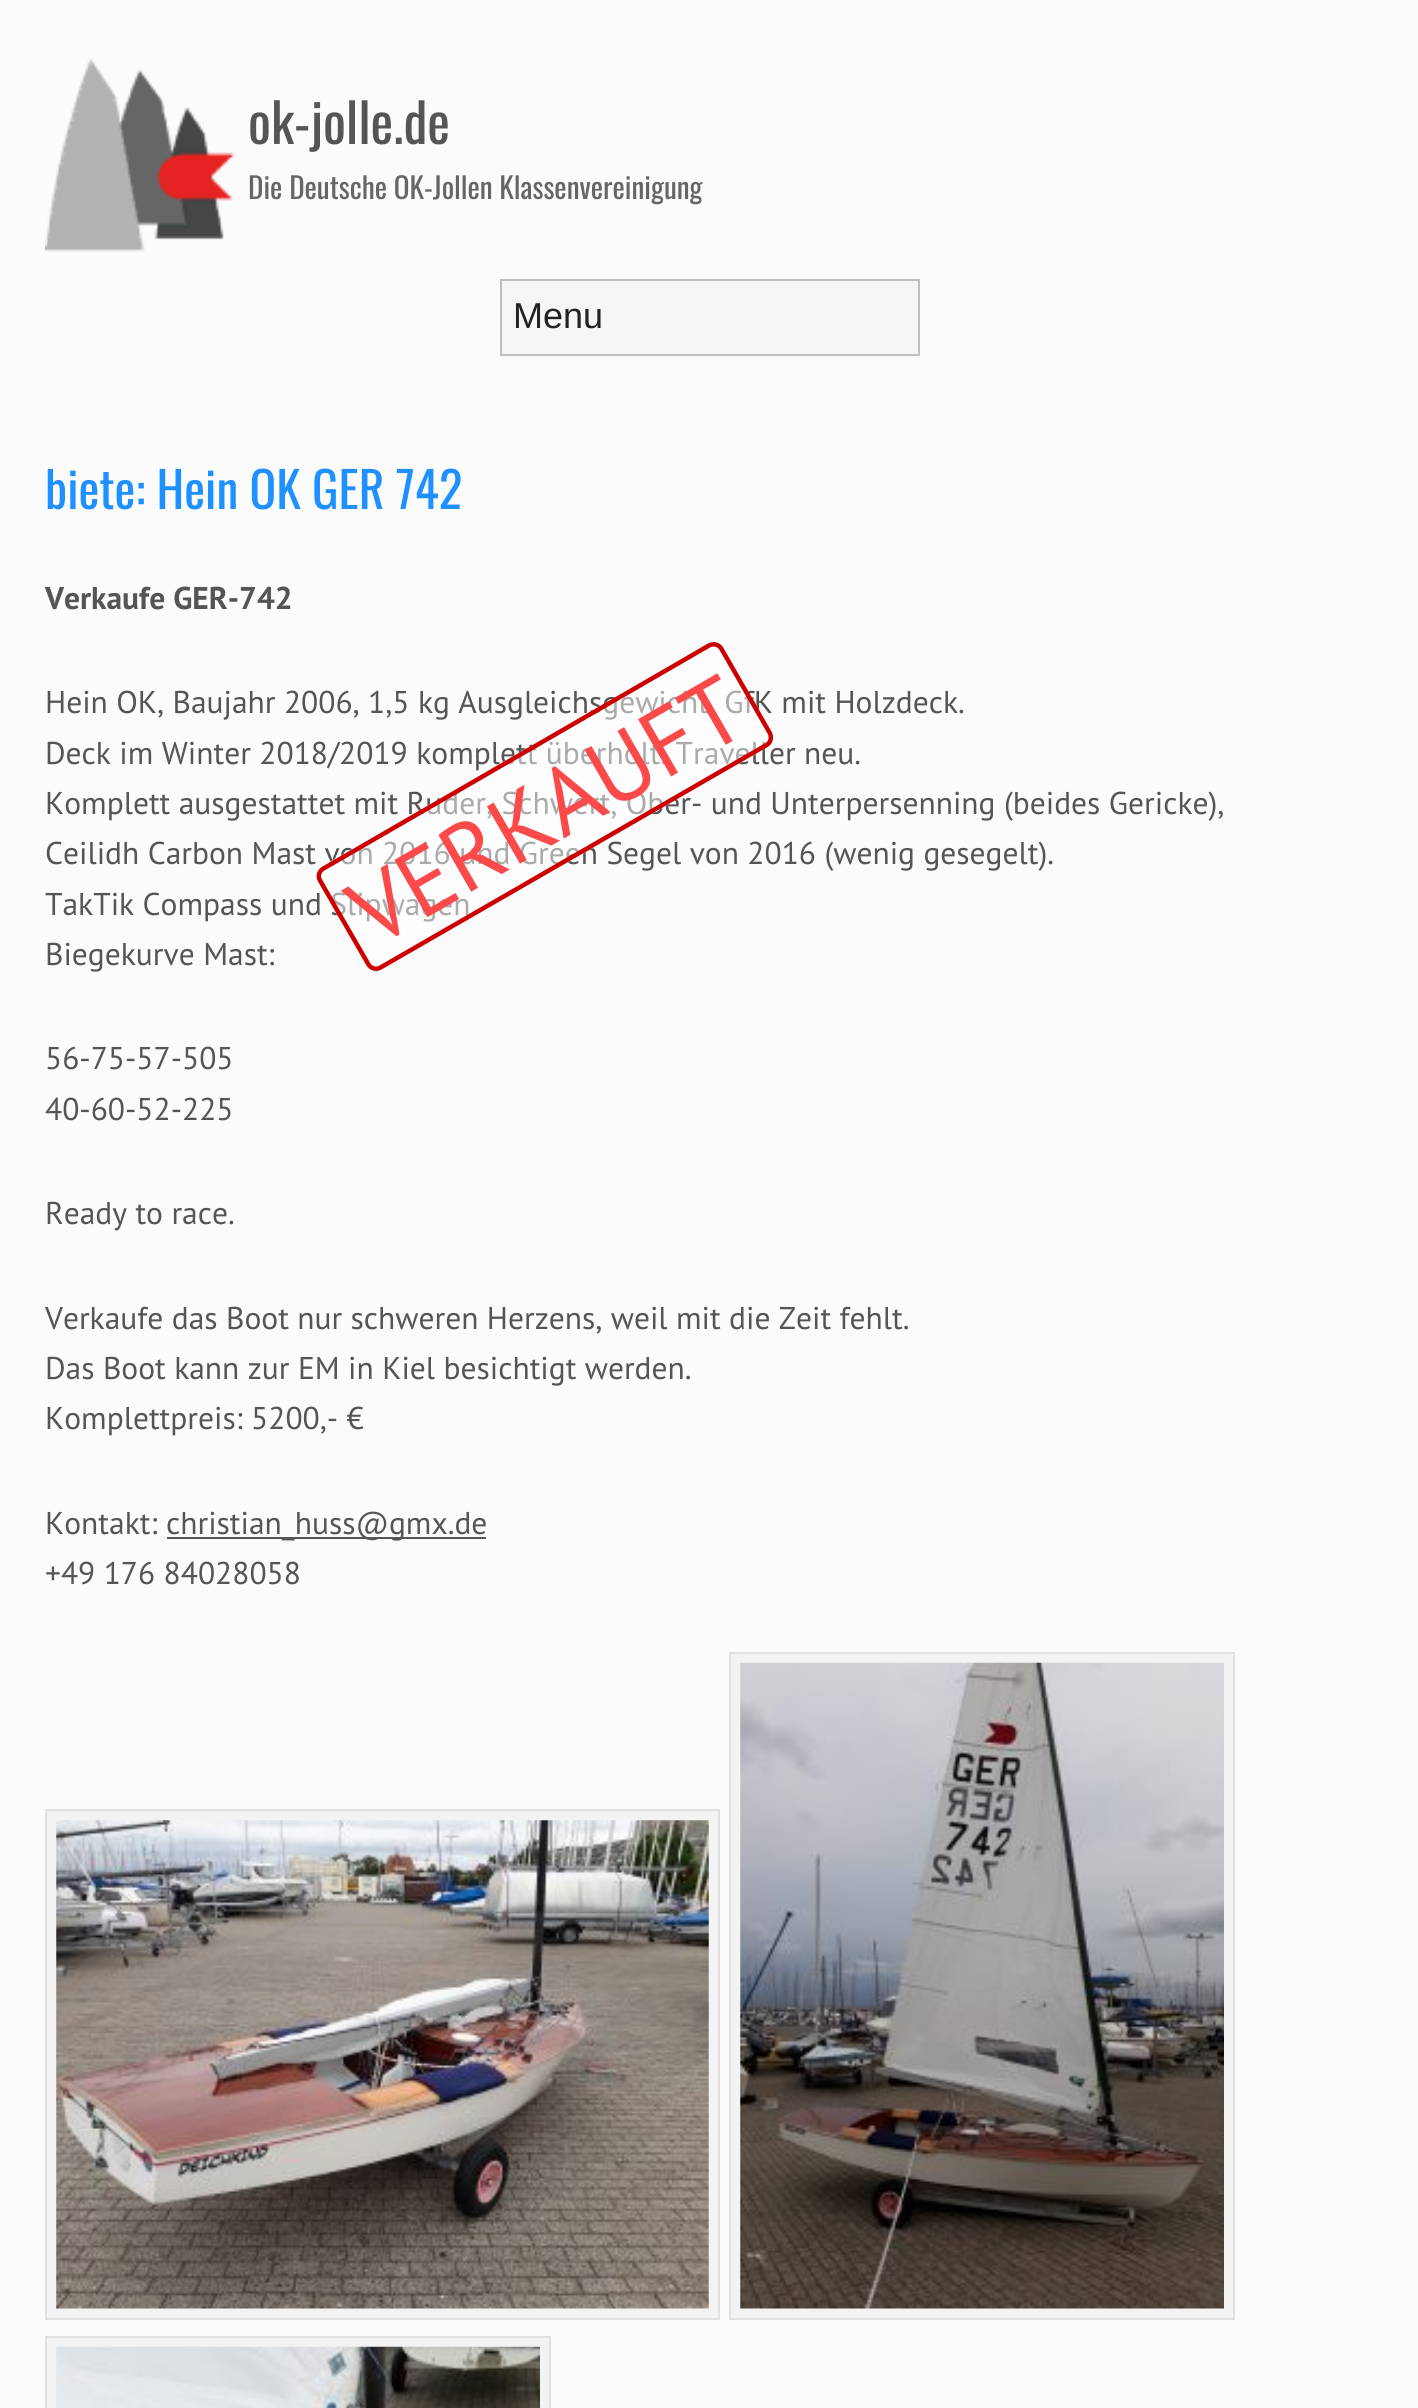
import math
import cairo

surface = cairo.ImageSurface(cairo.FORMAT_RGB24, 1418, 2408)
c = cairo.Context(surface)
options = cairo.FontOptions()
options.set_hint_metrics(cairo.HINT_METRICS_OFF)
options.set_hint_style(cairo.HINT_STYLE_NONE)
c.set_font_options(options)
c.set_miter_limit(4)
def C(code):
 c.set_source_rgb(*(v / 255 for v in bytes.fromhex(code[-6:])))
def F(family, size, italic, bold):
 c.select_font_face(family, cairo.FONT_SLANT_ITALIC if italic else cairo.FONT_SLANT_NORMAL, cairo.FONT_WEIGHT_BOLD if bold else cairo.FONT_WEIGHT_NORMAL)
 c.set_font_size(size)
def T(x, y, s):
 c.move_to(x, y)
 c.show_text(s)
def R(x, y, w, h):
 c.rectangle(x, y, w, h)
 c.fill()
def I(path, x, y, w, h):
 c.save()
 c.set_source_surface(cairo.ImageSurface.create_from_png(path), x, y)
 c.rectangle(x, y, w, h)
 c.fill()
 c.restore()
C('fbfbfb')
c.paint()
I('1.png',45,58,190,194)
F('Oswald',54,0,0)
C('555555')
T(248,144,'ok-jolle.de')
F('Oswald',29.25,0,0)
C('666666')
T(248,199,'Die Deutsche OK-Jollen Klassenvereinigung')
C('f6f6f6')
c.rectangle(501,280,418,75)
c.fill_preserve()
C('bfbfbf')
c.stroke()
F('Liberation Sans',36,0,0)
C('222222')
T(513,328,'Menu')
F('Oswald',49.5,0,0)
C('1e90ff')
T(45,509,'biete: Hein OK GER 742')
F('PT Sans',31.5,0,1)
C('555555')
T(45,609,'Verkaufe GER-742')
F('PT Sans',31.5,0,0)
T(45,713,'Hein OK, Baujahr 2006, 1,5 kg Ausgleichsgewicht, GfK mit Holzdeck.')
T(45,764,'Deck im Winter 2018/2019 komplett überholt. Traveller neu.')
T(45,814,'Komplett ausgestattet mit Ruder, Schwert, Ober- und Unterpersenning (beides Gericke),')
T(45,864,'Ceilidh Carbon Mast von 2016 und Green Segel von 2016 (wenig gesegelt).')
T(45,915,'TakTik Compass und Slipwagen')
c.set_source_rgba(1,1,1,0.5)
c.new_path()
c.move_to(322,866)
c.line_to(708,644)
c.curve_to(713,641,720,642,723,648)
c.line_to(772,732)
c.curve_to(775,737,773,744,768,747)
c.line_to(382,970)
c.curve_to(376,973,370,971,366,966)
c.line_to(318,882)
c.curve_to(315,876,317,869,322,866)
c.close_path()
c.fill()
c.new_path()
c.move_to(323.5,868.5)
c.line_to(709,645.5)
c.curve_to(713.5,643,719,644.5,721.5,649)
c.line_to(769.5,732.5)
c.curve_to(772,737,771,742.5,766.5,745)
c.line_to(380.5,967.5)
c.curve_to(376.5,970,371,968.5,368.5,964.5)
c.line_to(320,880.5)
c.curve_to(317.5,876.5,319,871,323.5,868.5)
c.close_path()
C('cc0000')
c.set_line_width(4.5)
c.stroke()
F('PT Sans',94.5,0,0)
C('fc4949')
c.save()
c.translate(374,948)
c.rotate(-30 * math.pi / 180)
T(0,0,'VERKAUFT')
c.restore()
F('PT Sans',31.5,0,0)
C('555555')
T(45,965,'Biegekurve Mast:')
T(45,1069,'56-75-57-505')
T(45,1120,'40-60-52-225')
T(45,1224,'Ready to race.')
T(45,1329,'Verkaufe das Boot nur schweren Herzens, weil mit die Zeit fehlt.')
T(45,1379,'Das Boot kann zur EM in Kiel besichtigt werden.')
T(45,1429,'Komplettpreis: 5200,- €')
T(45,1534,'Kontakt:')
R(167,1537,319,2)
T(166,1534,'christian_huss@gmx.de')
T(45,1584,'+49 176 84028058')
C('f3f3f3')
c.rectangle(730,1653,504,666)
c.fill_preserve()
C('e1e1e1')
c.set_line_width(2)
c.stroke()
C('f3f3f3')
c.rectangle(46,1810,673,509)
c.fill_preserve()
C('e1e1e1')
c.stroke()
I('2.png',740,1662,484,647)
I('3.png',56,1820,653,489)
C('f3f3f3')
c.rectangle(46,2337,504,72)
c.fill_preserve()
C('e1e1e1')
c.stroke()
I('4.png',56,2346,484,62)
surface.write_to_png('o.png')
